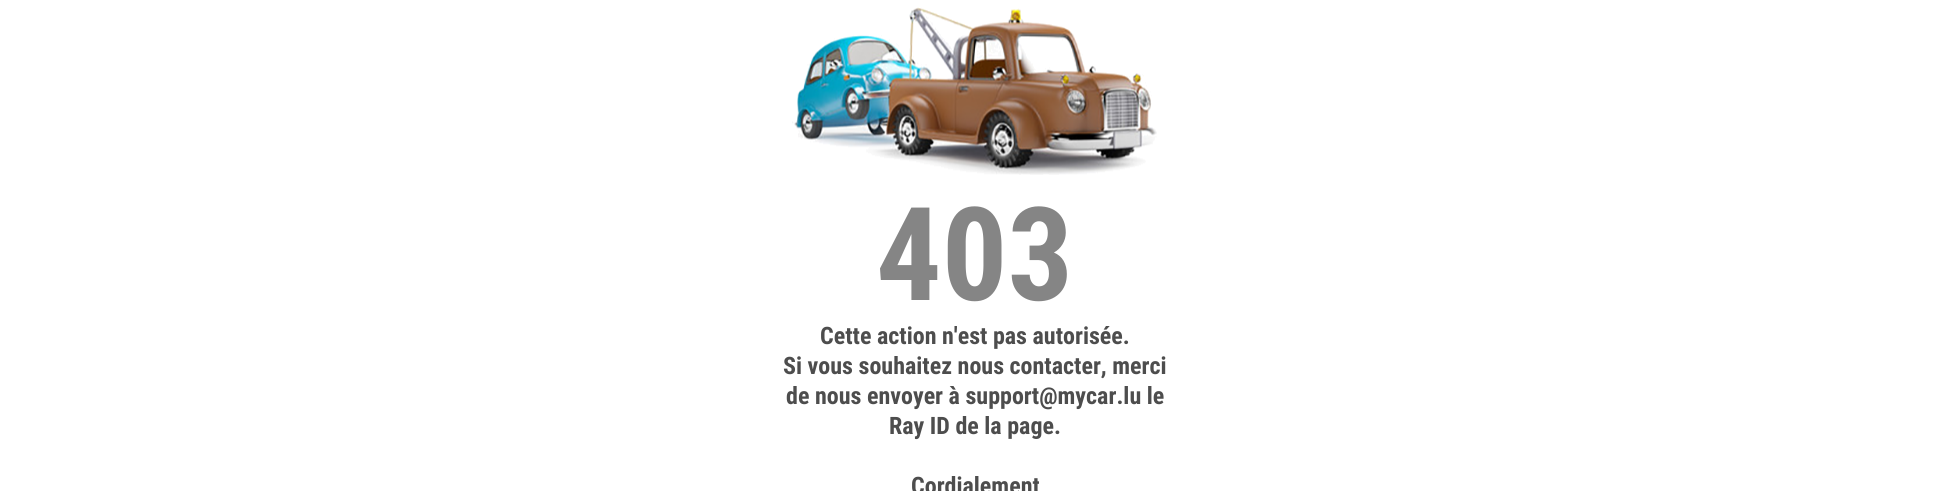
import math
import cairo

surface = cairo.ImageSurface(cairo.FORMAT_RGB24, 1950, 491)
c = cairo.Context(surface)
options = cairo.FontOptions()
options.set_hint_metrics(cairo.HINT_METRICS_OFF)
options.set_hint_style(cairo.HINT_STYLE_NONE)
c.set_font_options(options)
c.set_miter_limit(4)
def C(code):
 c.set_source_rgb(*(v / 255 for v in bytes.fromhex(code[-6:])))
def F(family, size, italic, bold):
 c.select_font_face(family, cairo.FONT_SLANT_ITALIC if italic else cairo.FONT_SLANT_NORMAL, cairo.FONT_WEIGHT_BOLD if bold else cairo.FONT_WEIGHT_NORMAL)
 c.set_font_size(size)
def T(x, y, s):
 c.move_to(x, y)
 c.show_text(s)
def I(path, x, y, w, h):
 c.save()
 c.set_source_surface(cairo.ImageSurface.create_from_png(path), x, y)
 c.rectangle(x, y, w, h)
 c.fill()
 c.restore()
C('ffffff')
c.paint()
I('1.png',792,7,365,168)
F('Roboto Condensed',130,0,1)
C('858585')
T(876,300,'403')
F('Roboto Condensed',24,0,1)
C('4d4d4d')
T(820,344,'Cette action n\'est pas autorisée.')
T(783,374,'Si vous souhaitez nous contacter, merci')
T(786,404,'de nous envoyer à support@mycar.lu le')
T(889,434,'Ray ID de la page.')
T(911,494,'Cordialement')
surface.write_to_png('o.png')
